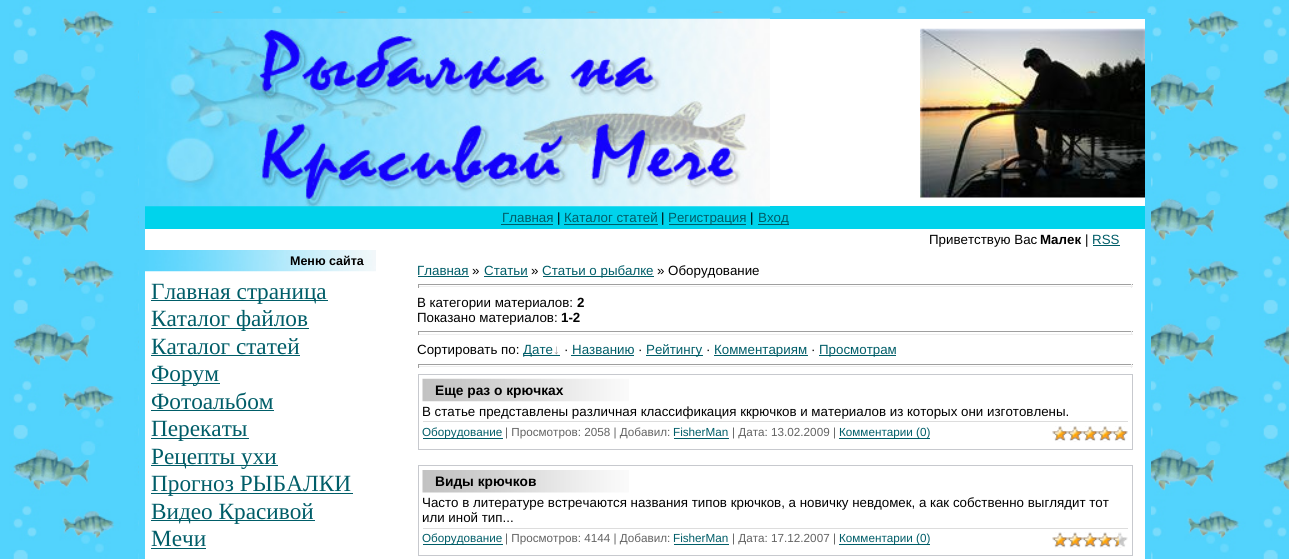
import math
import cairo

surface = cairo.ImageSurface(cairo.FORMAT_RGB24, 1289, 559)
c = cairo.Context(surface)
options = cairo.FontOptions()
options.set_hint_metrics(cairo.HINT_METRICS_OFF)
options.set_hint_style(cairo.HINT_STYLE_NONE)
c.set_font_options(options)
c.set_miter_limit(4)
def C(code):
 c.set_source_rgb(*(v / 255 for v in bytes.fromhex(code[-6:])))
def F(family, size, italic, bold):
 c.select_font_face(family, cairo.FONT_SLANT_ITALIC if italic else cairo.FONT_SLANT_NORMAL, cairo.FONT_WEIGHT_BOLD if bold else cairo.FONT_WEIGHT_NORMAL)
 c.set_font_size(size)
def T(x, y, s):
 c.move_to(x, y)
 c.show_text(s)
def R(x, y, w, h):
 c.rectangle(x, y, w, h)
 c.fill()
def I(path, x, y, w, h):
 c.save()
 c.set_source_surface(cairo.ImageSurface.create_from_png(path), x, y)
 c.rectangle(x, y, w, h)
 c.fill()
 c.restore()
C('ffffff')
c.paint()
I('1.png',0,0,1289,559)
C('ffffff')
c.rectangle(142,16,1006,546)
c.fill_preserve()
C('52d3fd')
c.set_line_width(6)
c.stroke()
C('00d3ec')
R(145,206,1000,23)
I('2.png',145,18,625,189)
I('3.png',920,28,225,170)
F('Liberation Sans',13.33,0,0)
C('005d68')
T(502,222,'Главная')
R(501,224,52,1)
C('000000')
T(557,222,'|')
C('005d68')
T(564,222,'Каталог статей')
R(564,224,94,1)
C('000000')
T(661,222,'|')
C('005d68')
R(669,224,77,1)
T(668,222,'Регистрация')
C('000000')
T(750,222,'|')
C('005d68')
R(758,224,31,1)
T(758,222,'Вход')
C('000000')
T(929,244,'Приветствую Вас')
F('Liberation Sans',13.33,0,1)
T(1040,244,'Малек')
F('Liberation Sans',13.33,0,0)
T(1085,244,'|')
C('005d68')
T(1092,244,'RSS')
R(1093,245,27,1)
I('4.png',145,250,231,22)
F('Liberation Sans',12.5,0,1)
C('000000')
T(290,265,'Меню сайта')
C('005d68')
R(151,300,177,1)
F('Liberation Serif',23.25,0,0)
T(151,299,'Главная страница')
R(151,328,158,1)
T(151,326,'Каталог файлов')
T(151,354,'Каталог статей')
R(151,355,149,1)
R(151,383,69,1)
T(151,381,'Форум')
T(151,409,'Фотоальбом')
R(151,410,123,1)
R(151,438,98,1)
T(151,436,'Перекаты')
R(151,465,127,1)
T(151,464,'Рецепты ухи')
R(151,493,202,1)
T(151,491,'Прогноз РЫБАЛКИ')
R(151,520,164,1)
T(151,519,'Видео Красивой')
T(151,546,'Мечи')
R(151,548,55,1)
F('Liberation Sans',13.33,0,0)
T(417,275,'Главная')
R(418,276,51,1)
C('000000')
T(472,275,'»')
C('005d68')
T(484,275,'Статьи')
R(484,276,44,1)
C('000000')
T(531,275,'»')
C('005d68')
R(543,276,111,1)
T(542,275,'Статьи о рыбалке')
C('000000')
T(657,275,'» Оборудование')
C('9f9f9f')
R(418,284,715,1)
C('eeeeee')
R(1131,284,1,4)
R(418,286,715,1)
C('9f9f9f')
R(418,284,1,4)
C('000000')
T(417,307,'В категории материалов:')
F('Liberation Sans',13.33,0,1)
T(577,307,'2')
F('Liberation Sans',13.33,0,0)
T(417,322,'Показано материалов:')
F('Liberation Sans',13.33,0,1)
T(561,322,'1-2')
C('9f9f9f')
R(418,331,715,1)
C('eeeeee')
R(1131,331,1,4)
R(418,334,715,1)
C('9f9f9f')
R(418,331,1,4)
F('Liberation Sans',13.33,0,0)
C('000000')
T(417,354,'Сортировать по:')
C('005d68')
R(524,355,36,1)
T(523,354,'Дате')
C('a0a0a0')
T(553,354,'↓')
C('000000')
T(564,354,'·')
C('005d68')
T(572,354,'Названию')
R(571,355,63,1)
C('000000')
T(638,354,'·')
C('005d68')
R(646,355,57,1)
T(646,354,'Рейтингу')
C('000000')
T(706,354,'·')
C('005d68')
R(714,355,94,1)
T(714,354,'Комментариям')
C('000000')
T(811,354,'·')
C('005d68')
R(819,355,77,1)
T(819,354,'Просмотрам')
C('9f9f9f')
R(418,364,715,1)
C('eeeeee')
R(1131,364,1,4)
R(418,366,715,1)
C('9f9f9f')
R(418,364,1,4)
c.rectangle(418.5,374.5,714,75)
C('c7c9ce')
c.set_line_width(1)
c.stroke()
I('5.png',422,378,207,24)
F('Liberation Sans',13.75,0,1)
C('000000')
T(435,395,'Еще раз о крючках')
F('Liberation Sans',13.33,0,0)
T(422,416,'В статье представлены различная классификация ккрючков и материалов из которых они изготовлены.')
C('dddddd')
R(423,421,705,1)
C('005d68')
R(423,438,80,1)
F('Liberation Sans',11.7,0,0)
T(422,436,'Оборудование')
C('636363')
T(505,436,'| Просмотров: 2058 | Добавил:')
C('005d68')
T(673,436,'FisherMan')
R(674,438,55,1)
C('636363')
T(732,436,'| Дата: 13.02.2009 |')
C('005d68')
R(839,438,91,1)
T(839,436,'Комментарии (0)')
I('6.png',1052,426,76,16)
I('7.png',1052,426,76,15)
c.rectangle(418.5,465.5,714,90)
C('c7c9ce')
c.stroke()
I('8.png',422,470,207,23)
F('Liberation Sans',13.75,0,1)
C('000000')
T(435,486,'Виды крючков')
F('Liberation Sans',13.33,0,0)
T(422,507,'Часто в литературе встречаются названия типов крючков, а новичку невдомек, а как собственно выглядит тот')
T(422,522,'или иной тип...')
C('dddddd')
R(423,528,705,1)
C('005d68')
R(423,544,80,1)
F('Liberation Sans',11.7,0,0)
T(422,542,'Оборудование')
C('636363')
T(505,542,'| Просмотров: 4144 | Добавил:')
C('005d68')
T(673,542,'FisherMan')
R(674,544,55,1)
C('636363')
T(732,542,'| Дата: 17.12.2007 |')
C('005d68')
R(839,544,91,1)
T(839,542,'Комментарии (0)')
I('9.png',1052,532,76,16)
I('10.png',1052,532,67,16)
surface.write_to_png('o.png')
